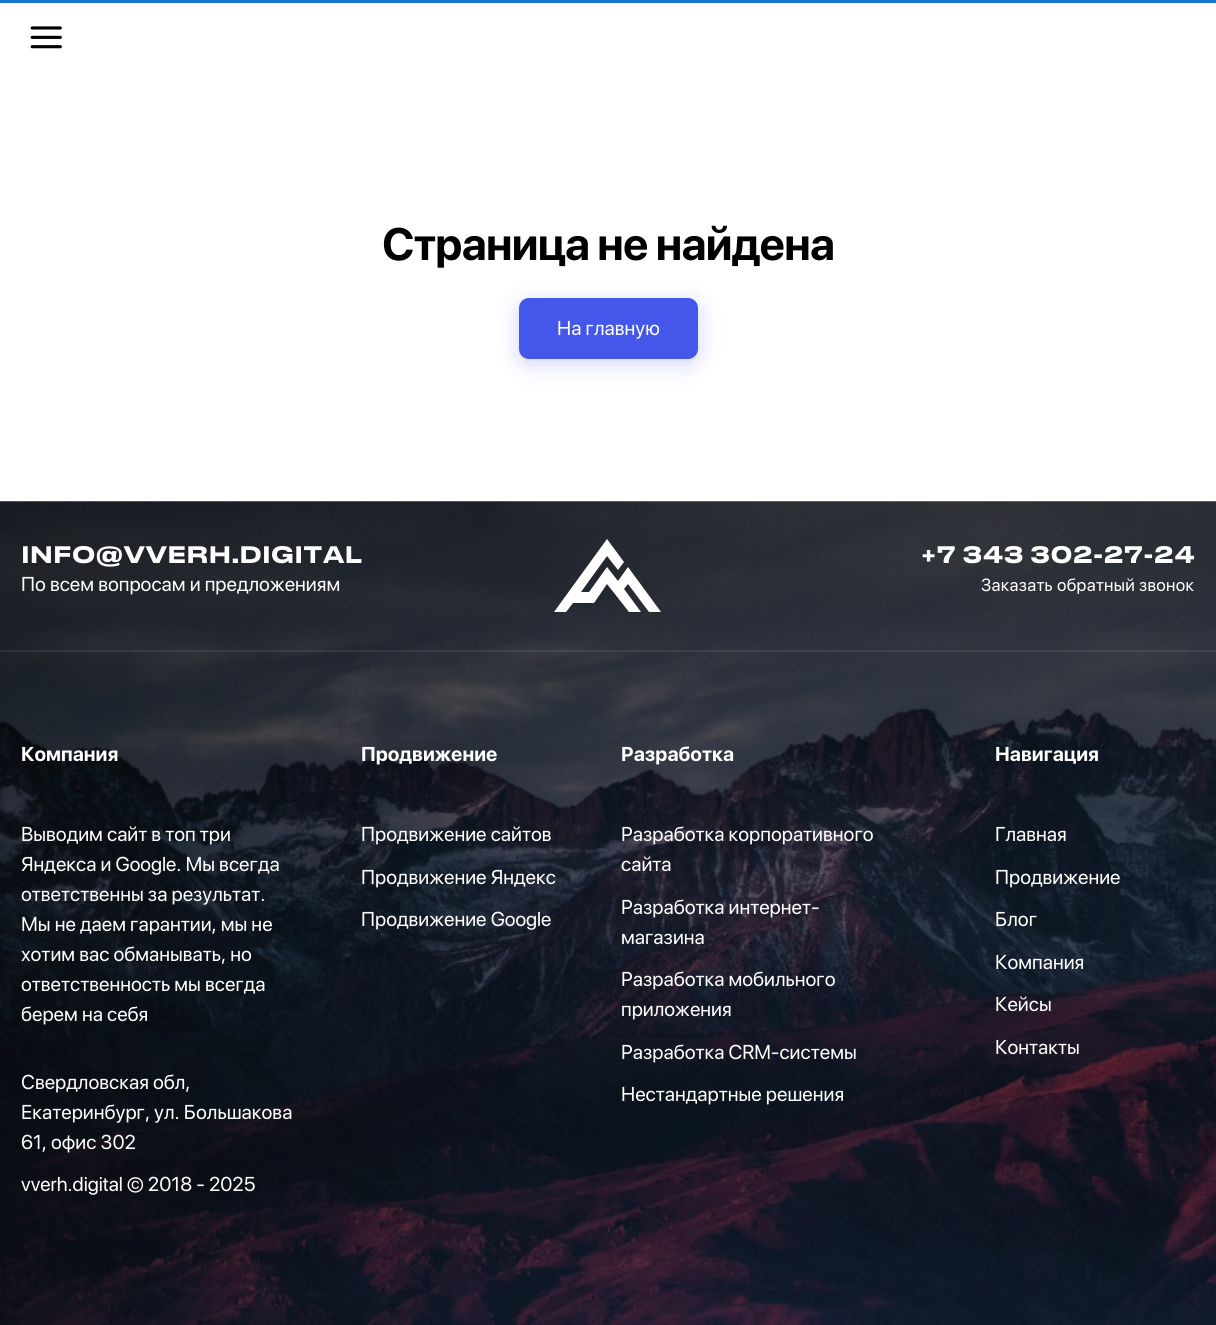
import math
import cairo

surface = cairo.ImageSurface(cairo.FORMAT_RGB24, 1216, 1325)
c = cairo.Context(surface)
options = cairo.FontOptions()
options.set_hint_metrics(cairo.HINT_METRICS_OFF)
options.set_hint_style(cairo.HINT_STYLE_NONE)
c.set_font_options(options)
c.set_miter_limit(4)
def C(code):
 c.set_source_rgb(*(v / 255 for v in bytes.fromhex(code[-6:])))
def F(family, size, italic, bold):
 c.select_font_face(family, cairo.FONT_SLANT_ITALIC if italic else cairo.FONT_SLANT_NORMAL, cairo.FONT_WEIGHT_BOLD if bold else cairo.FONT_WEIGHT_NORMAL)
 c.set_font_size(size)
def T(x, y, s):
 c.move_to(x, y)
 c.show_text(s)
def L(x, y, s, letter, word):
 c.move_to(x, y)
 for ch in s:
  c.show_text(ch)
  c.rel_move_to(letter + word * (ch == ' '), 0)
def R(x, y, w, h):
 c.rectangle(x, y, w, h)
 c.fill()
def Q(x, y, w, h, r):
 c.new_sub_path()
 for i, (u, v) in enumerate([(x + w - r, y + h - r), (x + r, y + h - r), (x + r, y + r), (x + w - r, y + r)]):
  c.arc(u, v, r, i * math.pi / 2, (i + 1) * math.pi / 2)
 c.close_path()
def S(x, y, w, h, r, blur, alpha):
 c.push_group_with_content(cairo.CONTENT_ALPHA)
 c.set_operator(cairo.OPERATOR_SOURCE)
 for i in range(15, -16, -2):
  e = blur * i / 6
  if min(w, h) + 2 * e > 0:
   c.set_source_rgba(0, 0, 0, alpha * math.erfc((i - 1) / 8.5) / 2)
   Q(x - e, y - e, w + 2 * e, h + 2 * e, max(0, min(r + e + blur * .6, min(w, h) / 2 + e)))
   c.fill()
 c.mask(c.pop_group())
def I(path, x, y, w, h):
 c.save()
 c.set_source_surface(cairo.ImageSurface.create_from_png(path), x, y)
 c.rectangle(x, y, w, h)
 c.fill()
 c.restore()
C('ffffff')
c.paint()
C('1976d2')
R(0,0,1216,3)
I('1.png',30,26,32,23)
F('SF Pro Display',45,0,1)
C('000000')
L(382,260,'Страница не найдена',-.75,0)
C('4556ea')
S(519,303,179,61,10,11,.25)
C('4556ea')
Q(519,298,179,61,10)
c.fill()
F('SF Pro Display',20,0,0)
C('ffffff')
T(557,335,'На главную')
I('2.png',0,501,1216,824)
F('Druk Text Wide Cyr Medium',22.5,0,0)
T(21,563,'INFO@VVERH.DIGITAL')
F('SF Pro Display',20,0,0)
T(21,591,'По всем вопросам и предложениям')
c.new_path()
c.move_to(607,539)
c.line_to(554,612)
c.line_to(566,612)
c.line_to(573,603)
c.line_to(594,603)
c.line_to(607,584)
c.line_to(629,612)
c.line_to(641,612)
c.line_to(624,589)
c.line_to(628,584)
c.line_to(649,612)
c.line_to(661,612)
c.line_to(628,567)
c.line_to(618,581)
c.line_to(607,567)
c.line_to(589,592)
c.line_to(581,592)
c.line_to(607,556)
c.line_to(618,570)
c.line_to(624,562)
c.close_path()
c.fill()
F('Druk Text Wide Cyr Medium',22.5,0,0)
T(921,563,'+7 343 302-27-24')
F('SF Pro Display',17.5,0,0)
L(981,591,'Заказать обратный звонок',.3,0)
c.set_source_rgba(0.667,0.667,0.667,0.1)
c.new_path()
c.move_to(0,650)
c.line_to(1216,650)
c.line_to(1215,651)
c.line_to(1,651)
c.close_path()
c.fill()
c.set_source_rgba(1,1,1,0.1)
c.new_path()
c.move_to(1216,650)
c.line_to(1216,652.5)
c.line_to(1215,651)
c.close_path()
c.fill()
c.new_path()
c.move_to(1216,652)
c.line_to(0,652)
c.line_to(1,651)
c.line_to(1215,651)
c.close_path()
c.fill()
c.set_source_rgba(0.667,0.667,0.667,0.1)
c.new_path()
c.move_to(0,652.5)
c.line_to(0,650)
c.line_to(1,651)
c.close_path()
c.fill()
F('SF Pro Display',20,0,1)
C('ffffff')
T(21,761,'Компания')
F('SF Pro Display',20,0,0)
T(21,841,'Выводим сайт в топ три')
T(21,871,'Яндекса и Google. Мы всегда')
T(21,901,'ответственны за результат.')
T(21,931,'Мы не даем гарантии, мы не')
T(21,961,'хотим вас обманывать, но')
T(21,991,'ответственность мы всегда')
T(21,1021,'берем на себя')
T(21,1089,'Свердловская обл,')
T(21,1119,'Екатеринбург, ул. Большакова')
T(21,1149,'61, офис 302')
T(21,1191,'vverh.digital © 2018 - 2025')
F('SF Pro Display',20,0,1)
T(361,761,'Продвижение')
F('SF Pro Display',20,0,0)
T(361,841,'Продвижение сайтов')
T(361,884,'Продвижение Яндекс')
T(361,926,'Продвижение Google')
F('SF Pro Display',20,0,1)
T(621,761,'Разработка')
F('SF Pro Display',20,0,0)
T(621,841,'Разработка корпоративного')
T(621,871,'сайта')
T(621,914,'Разработка интернет-')
T(621,944,'магазина')
T(621,986,'Разработка мобильного')
T(621,1016,'приложения')
T(621,1059,'Разработка CRM-системы')
T(621,1101,'Нестандартные решения')
F('SF Pro Display',20,0,1)
T(995,761,'Навигация')
F('SF Pro Display',20,0,0)
T(995,841,'Главная')
T(995,884,'Продвижение')
T(995,926,'Блог')
T(995,969,'Компания')
T(995,1011,'Кейсы')
T(995,1054,'Контакты')
surface.write_to_png('o.png')
